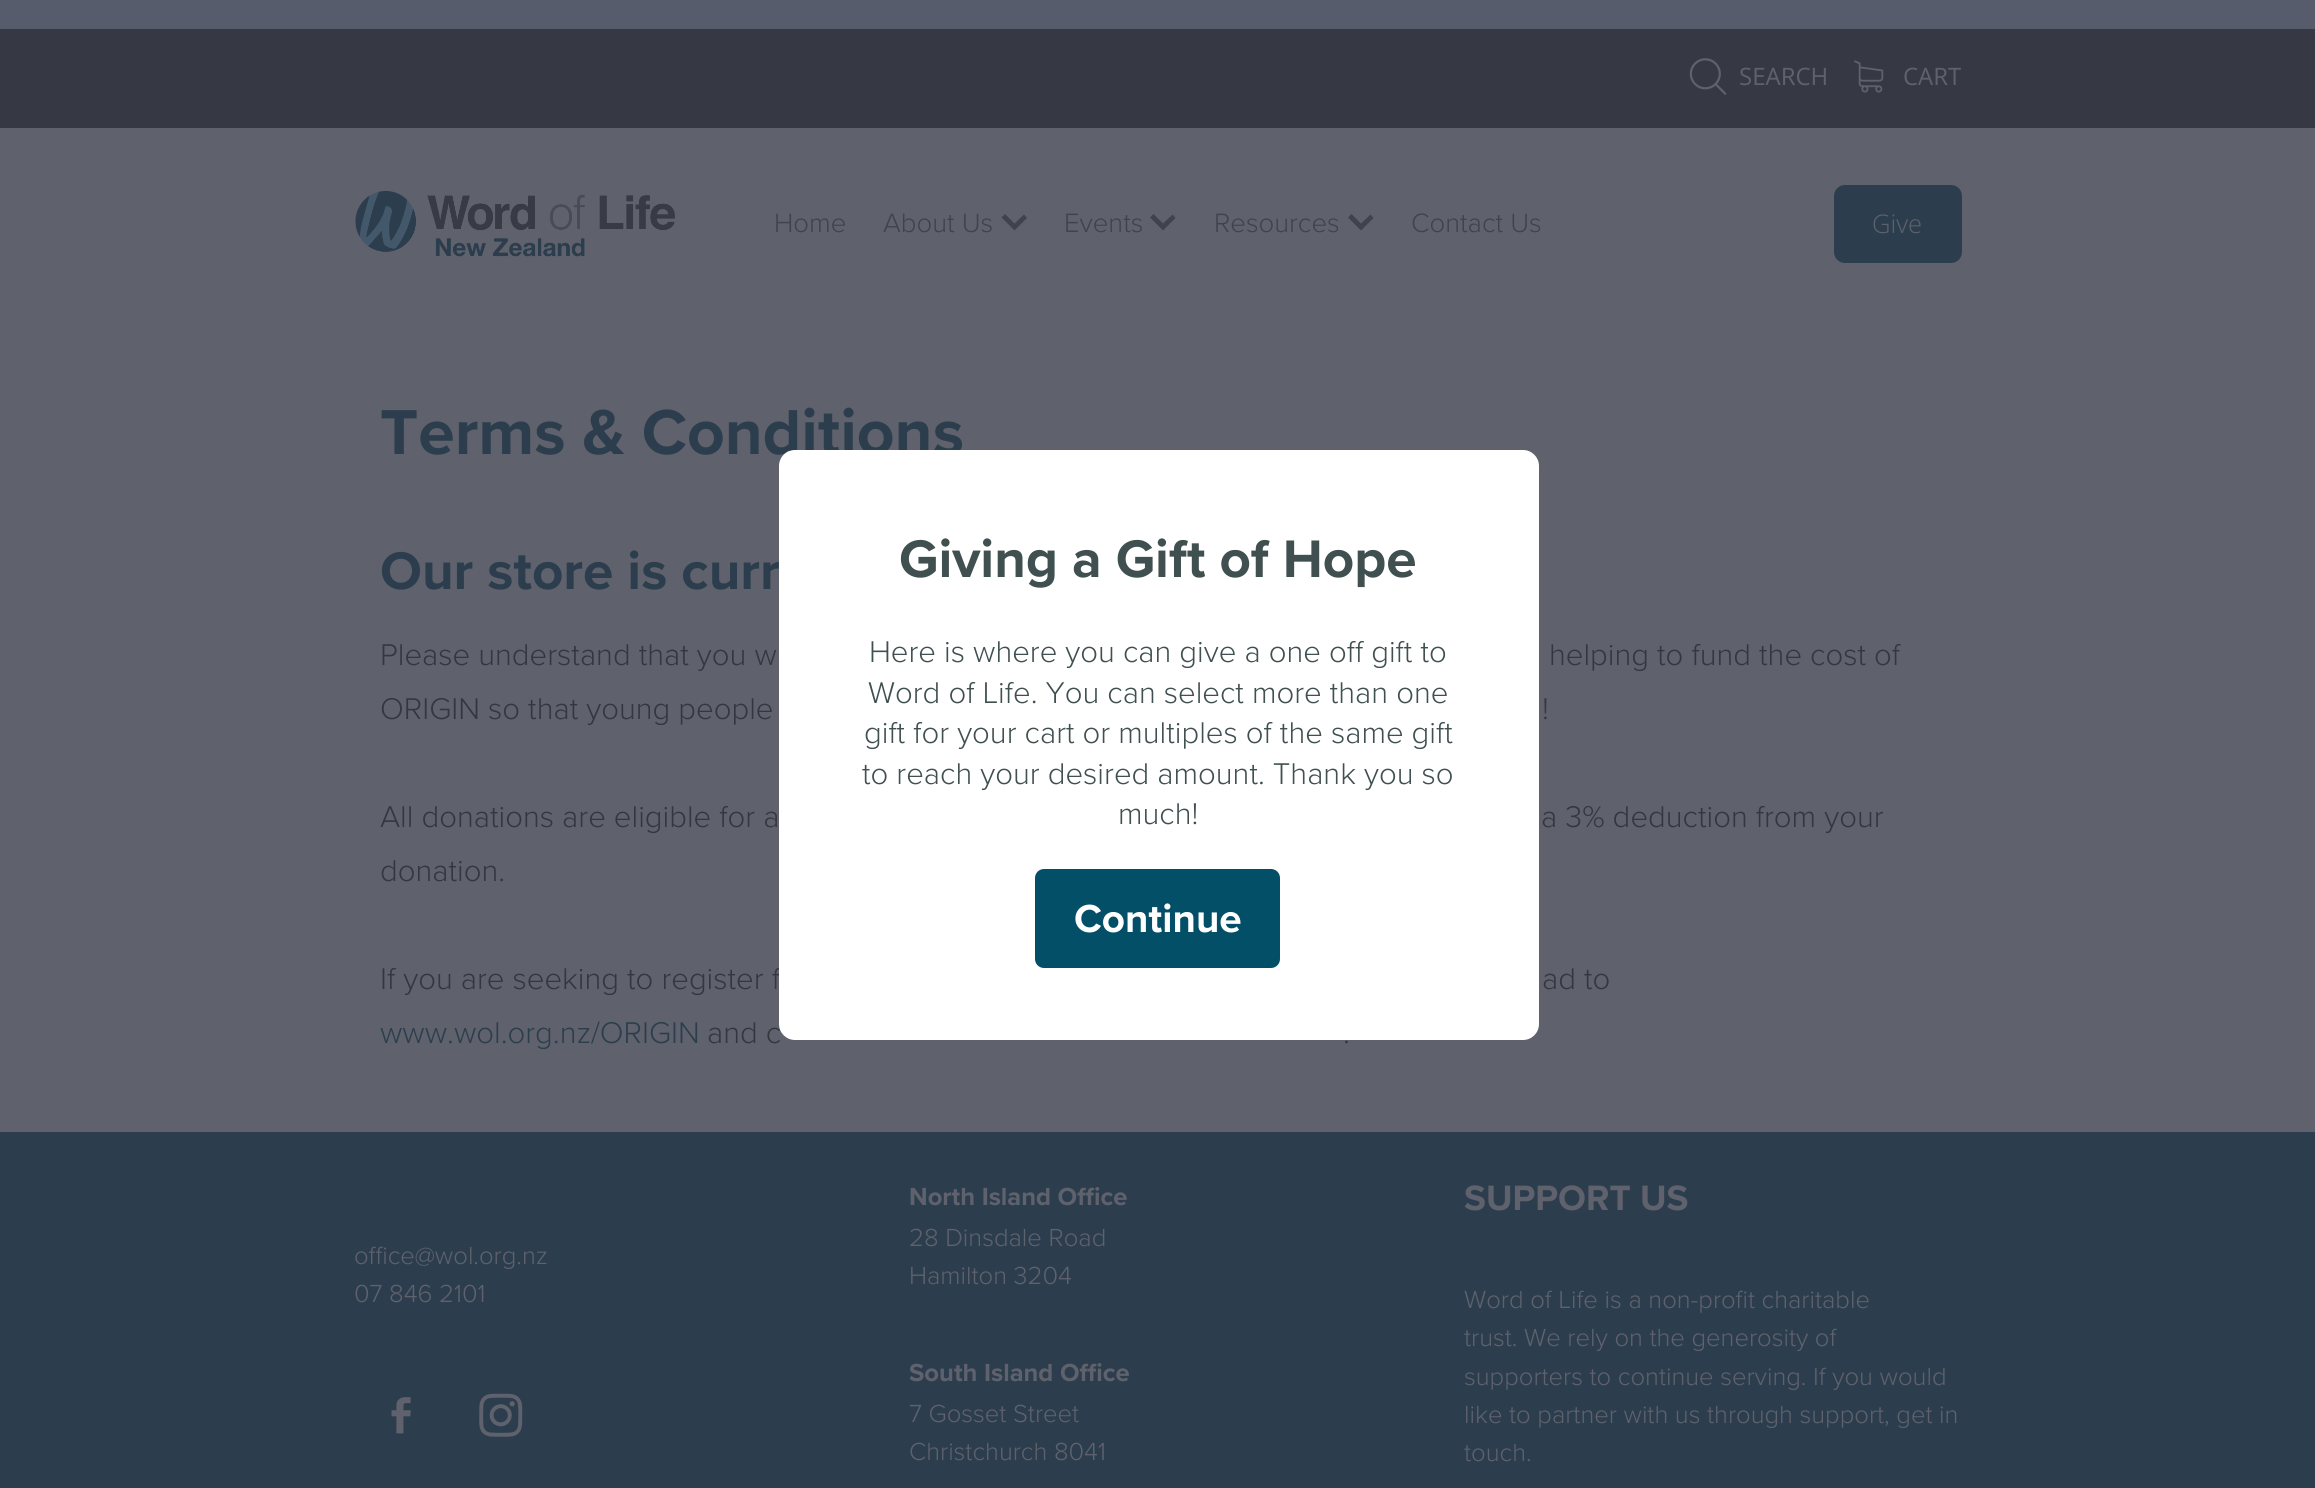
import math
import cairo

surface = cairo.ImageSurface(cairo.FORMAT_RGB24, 2315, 1488)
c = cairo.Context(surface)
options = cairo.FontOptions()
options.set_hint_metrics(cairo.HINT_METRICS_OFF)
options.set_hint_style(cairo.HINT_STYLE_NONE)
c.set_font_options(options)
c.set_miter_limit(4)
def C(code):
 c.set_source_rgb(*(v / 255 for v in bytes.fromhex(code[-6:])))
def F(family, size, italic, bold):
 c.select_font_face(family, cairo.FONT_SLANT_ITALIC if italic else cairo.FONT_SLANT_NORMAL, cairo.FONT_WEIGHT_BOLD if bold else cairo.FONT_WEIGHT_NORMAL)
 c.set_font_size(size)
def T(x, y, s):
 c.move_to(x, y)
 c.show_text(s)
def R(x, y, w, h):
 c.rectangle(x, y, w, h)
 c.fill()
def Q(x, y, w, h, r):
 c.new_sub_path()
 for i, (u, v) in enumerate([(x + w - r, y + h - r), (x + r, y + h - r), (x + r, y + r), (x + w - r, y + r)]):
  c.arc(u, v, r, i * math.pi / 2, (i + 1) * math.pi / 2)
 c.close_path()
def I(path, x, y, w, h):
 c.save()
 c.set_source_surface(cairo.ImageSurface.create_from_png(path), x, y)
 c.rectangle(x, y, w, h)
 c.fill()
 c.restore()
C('5f616c')
c.paint()
C('565c6b')
R(0,0,2315,29)
C('363943')
R(0,29,2315,99)
I('1.png',1689,58,38,37)
F('Open Sans',24,0,0)
C('5f616c')
T(1739,85,'SEARCH')
I('2.png',1854,60,30,33)
T(1903,85,'CART')
I('3.png',355,191,320,66)
F('Proxima Nova Light',27.5,0,0)
C('40424d')
T(774,232,'Home')
T(883,232,'About Us')
c.set_fill_rule(cairo.FILL_RULE_EVEN_ODD)
c.new_path()
c.move_to(1027,218)
c.line_to(1014.5,230.5)
c.line_to(1001.5,217.5)
c.line_to(1005,214)
c.line_to(1014.5,223.5)
c.line_to(1024,214.5)
c.close_path()
c.fill()
T(1064,232,'Events')
c.new_path()
c.move_to(1175.5,218)
c.line_to(1163,230.5)
c.line_to(1150,217.5)
c.line_to(1153.5,214)
c.line_to(1163,223.5)
c.line_to(1172.5,214.5)
c.close_path()
c.fill()
T(1214,232,'Resources')
c.new_path()
c.move_to(1373.5,218)
c.line_to(1361,230.5)
c.line_to(1348,217.5)
c.line_to(1351.5,214)
c.line_to(1361,223.5)
c.line_to(1370.5,214.5)
c.close_path()
c.fill()
T(1411,232,'Contact Us')
C('2c3e4e')
Q(1834,185,128,78,11)
c.fill()
F('Open Sans Light',25.6,0,0)
C('5f616c')
T(1872,233,'Give')
F('Proxima Nova',65.75,0,1)
C('2c3e4d')
T(380,454,'Terms & Conditions')
F('Proxima Nova',54.75,0,1)
T(380,589,'Our store is curr')
F('Proxima Nova Light',31.1,0,0)
C('343640')
T(380,665,'Please understand that you w')
T(1549,665,'helping to fund the cost of')
T(380,719,'ORIGIN so that young people')
T(1542,719,'!')
T(380,827,'All donations are eligible for a')
T(1541,827,'a 3% deduction from your')
T(380,881,'donation.')
T(380,989,'If you are seeking to register f')
T(1542,989,'ad to')
C('2c3e4d')
T(380,1043,'www.wol.org.nz/ORIGIN')
C('343640')
T(707,1043,'and c')
T(1343,1043,'.')
C('2c3e4e')
R(0,1132,2315,356)
F('Proxima Nova Light',25.6,0,0)
C('5f616c')
T(354,1264,'office@wol.org.nz')
T(354,1302,'07 846 2101')
I('4.png',391,1397,20,37)
I('5.png',479,1393,44,44)
F('Proxima Nova',25.6,0,1)
T(909,1205,'North Island Office')
F('Proxima Nova Light',25.6,0,0)
T(909,1246,'28 Dinsdale Road')
T(909,1284,'Hamilton 3204')
F('Proxima Nova',25.6,0,1)
T(909,1381,'South Island Office')
F('Proxima Nova Light',25.6,0,0)
T(909,1422,'7 Gosset Street')
T(909,1460,'Christchurch 8041')
F('Proxima Nova',36.5,0,1)
T(1464,1210,'SUPPORT US')
F('Proxima Nova Light',25.6,0,0)
T(1464,1308,'Word of Life is a non-profit charitable')
T(1464,1346,'trust. We rely on the generosity of')
T(1464,1385,'supporters to continue serving. If you would')
T(1464,1423,'like to partner with us through support, get in')
T(1464,1461,'touch.')
C('ffffff')
Q(779,450,760,590,16)
c.fill()
F('Proxima Nova',54.75,0,1)
C('404f4f')
T(899,577,'Giving a Gift of Hope')
F('Proxima Nova Light',31.1,0,0)
T(869,662,'Here is where you can give a one off gift to')
T(868,703,'Word of Life. You can select more than one')
T(864,743,'gift for your cart or multiples of the same gift')
T(862,784,'to reach your desired amount. Thank you so')
T(1118,824,'much!')
C('024f67')
Q(1037.5,871.5,240,94,6.5)
c.fill_preserve()
c.set_line_width(5)
c.stroke()
F('Proxima Nova',40.5,0,1)
C('ffffff')
T(1074,932,'Continue')
surface.write_to_png('o.png')
